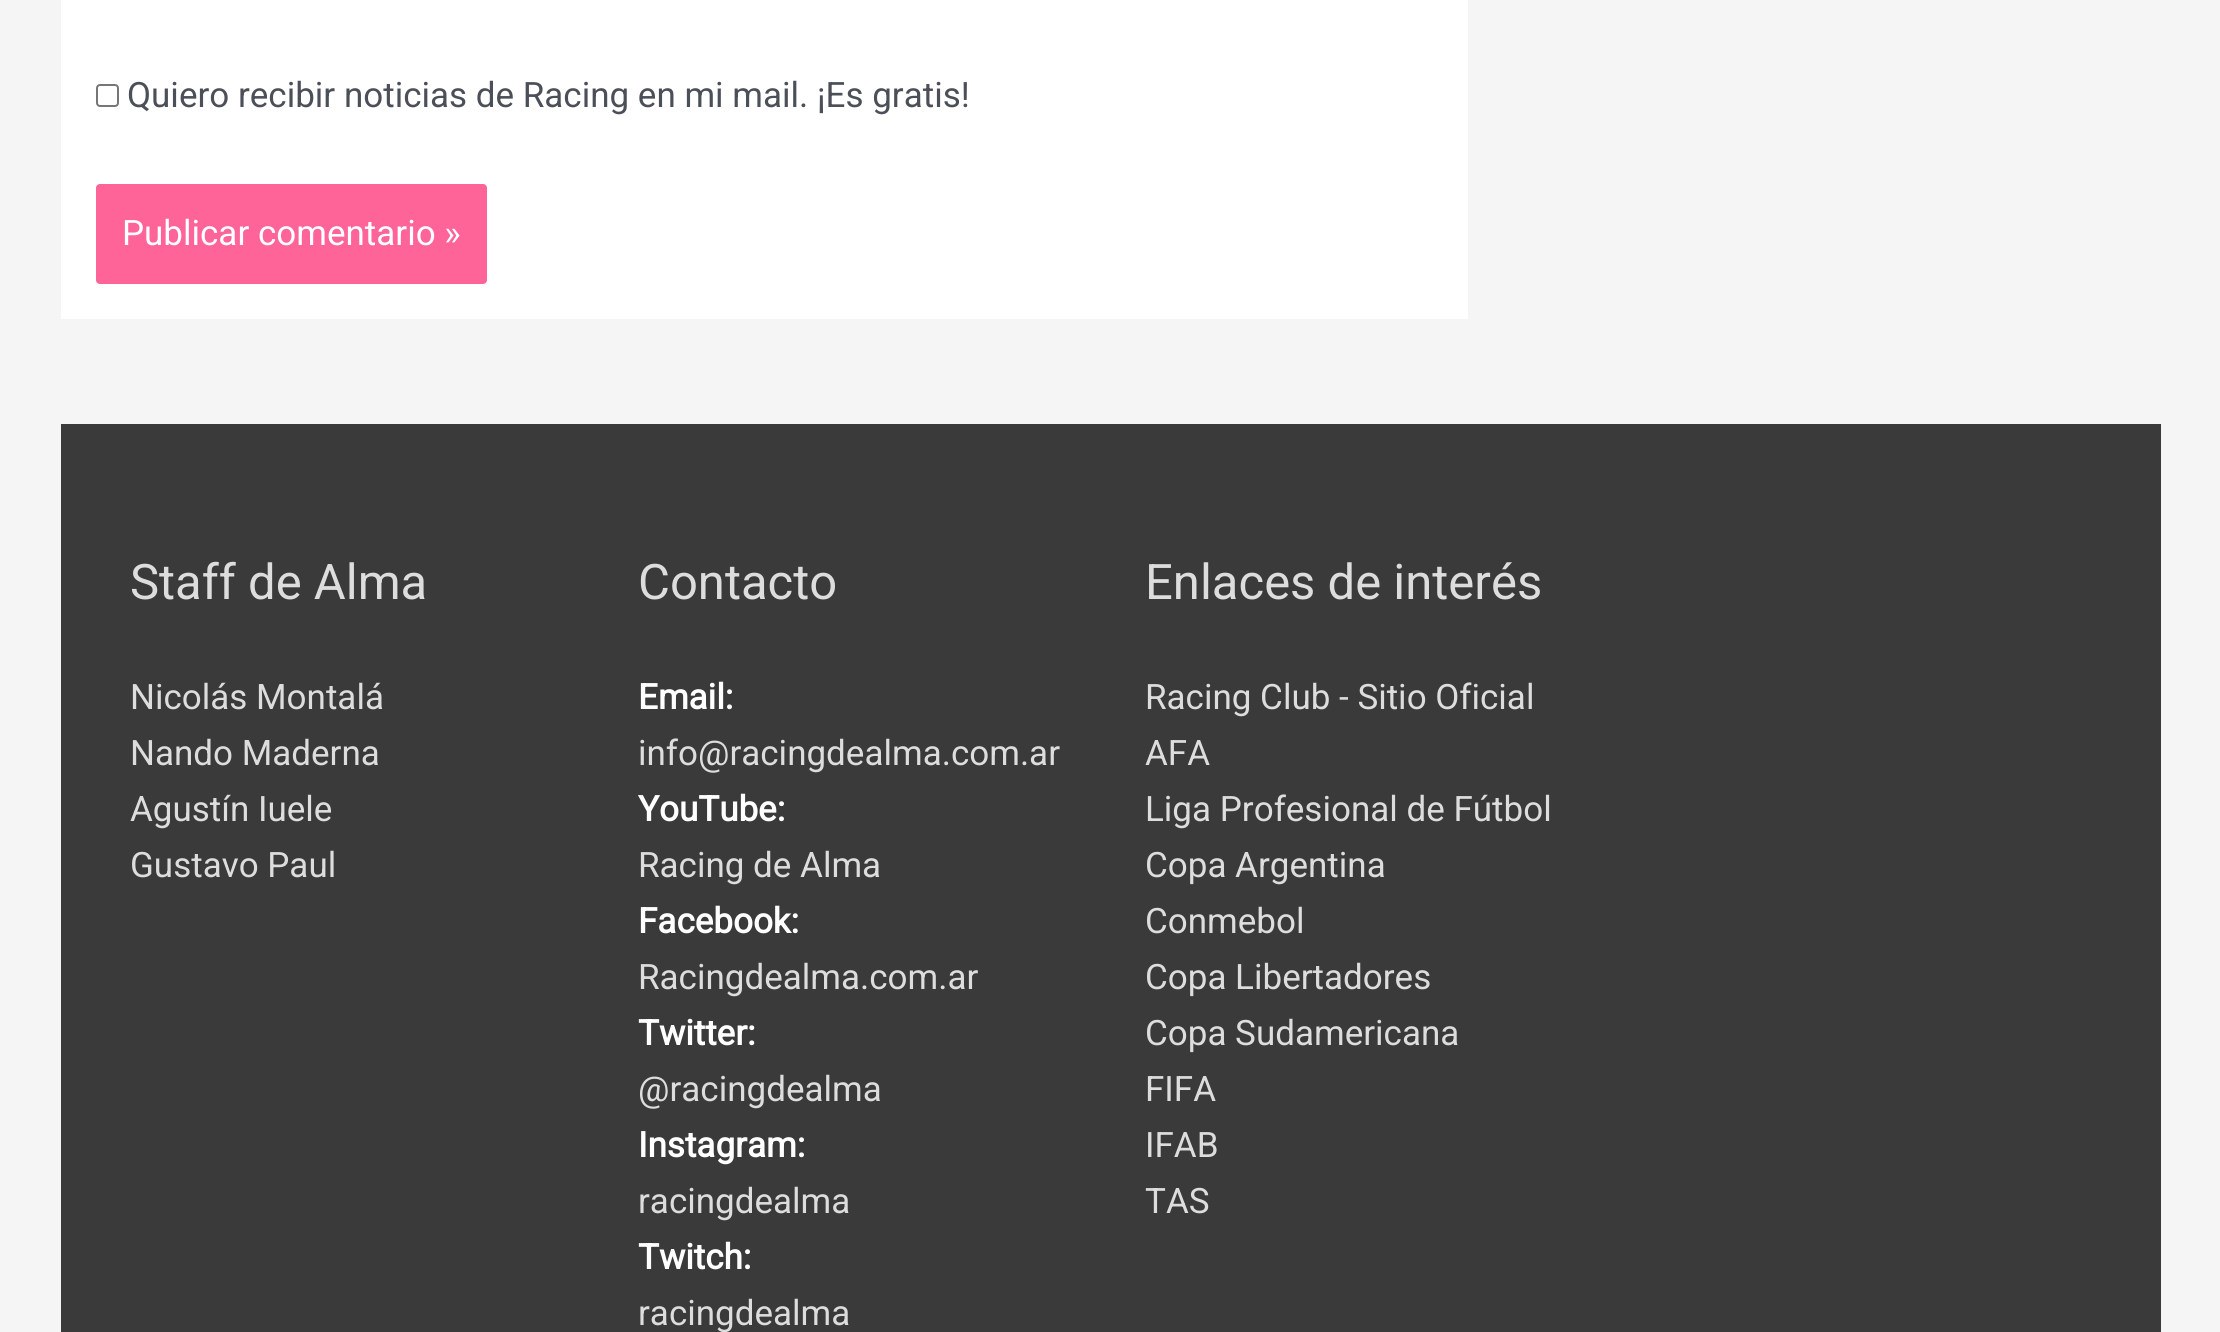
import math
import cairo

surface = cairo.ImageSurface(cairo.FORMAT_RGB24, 2220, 1332)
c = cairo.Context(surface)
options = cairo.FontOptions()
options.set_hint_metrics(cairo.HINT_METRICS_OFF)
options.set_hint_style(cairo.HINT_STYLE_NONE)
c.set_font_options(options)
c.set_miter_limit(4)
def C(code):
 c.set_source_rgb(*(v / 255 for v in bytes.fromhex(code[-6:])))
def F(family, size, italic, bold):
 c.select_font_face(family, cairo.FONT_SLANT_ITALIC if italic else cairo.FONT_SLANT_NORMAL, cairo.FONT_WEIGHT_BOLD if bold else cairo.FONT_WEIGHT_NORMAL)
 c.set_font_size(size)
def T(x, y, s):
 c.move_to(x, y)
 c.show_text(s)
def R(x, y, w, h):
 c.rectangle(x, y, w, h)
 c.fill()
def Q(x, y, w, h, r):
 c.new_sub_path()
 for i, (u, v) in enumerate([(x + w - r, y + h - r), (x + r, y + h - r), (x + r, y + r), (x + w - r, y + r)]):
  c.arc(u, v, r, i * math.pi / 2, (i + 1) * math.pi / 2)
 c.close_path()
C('f5f5f5')
c.paint()
C('ffffff')
R(61,0,1407,319)
Q(97,85,21,21,3)
C('767676')
c.stroke()
F('Roboto',35,0,0)
C('4b4f58')
T(127,107,'Quiero recibir noticias de Racing en mi mail. ¡Es gratis!')
C('ff6499')
Q(96,184,391,100,4)
c.fill()
C('ffffff')
T(122,245,'Publicar comentario »')
C('3a3a3a')
R(61,424,2100,908)
F('Roboto',49,0,0)
C('dddddd')
T(130,599,'Staff de Alma')
F('Roboto',35,0,0)
T(130,709,'Nicolás Montalá')
T(130,765,'Nando Maderna')
T(130,821,'Agustín Iuele')
T(130,877,'Gustavo Paul')
F('Roboto',49,0,0)
T(638,599,'Contacto')
F('Roboto',35,0,1)
C('ffffff')
T(638,709,'Email:')
F('Roboto',35,0,0)
C('dddddd')
T(638,765,'info@racingdealma.com.ar')
F('Roboto',35,0,1)
C('ffffff')
T(638,821,'YouTube:')
F('Roboto',35,0,0)
C('dddddd')
T(638,877,'Racing de Alma')
F('Roboto',35,0,1)
C('ffffff')
T(638,933,'Facebook:')
F('Roboto',35,0,0)
C('dddddd')
T(638,989,'Racingdealma.com.ar')
F('Roboto',35,0,1)
C('ffffff')
T(638,1045,'Twitter:')
F('Roboto',35,0,0)
C('dddddd')
T(638,1101,'@racingdealma')
F('Roboto',35,0,1)
C('ffffff')
T(638,1157,'Instagram:')
F('Roboto',35,0,0)
C('dddddd')
T(638,1213,'racingdealma')
F('Roboto',35,0,1)
C('ffffff')
T(638,1269,'Twitch:')
F('Roboto',35,0,0)
C('dddddd')
T(638,1325,'racingdealma')
F('Roboto',49,0,0)
T(1145,599,'Enlaces de interés')
F('Roboto',35,0,0)
T(1145,709,'Racing Club - Sitio Oficial')
T(1145,765,'AFA')
T(1145,821,'Liga Profesional de Fútbol')
T(1145,877,'Copa Argentina')
T(1145,933,'Conmebol')
T(1145,989,'Copa Libertadores')
T(1145,1045,'Copa Sudamericana')
T(1145,1101,'FIFA')
T(1145,1157,'IFAB')
T(1145,1213,'TAS')
surface.write_to_png('o.png')
